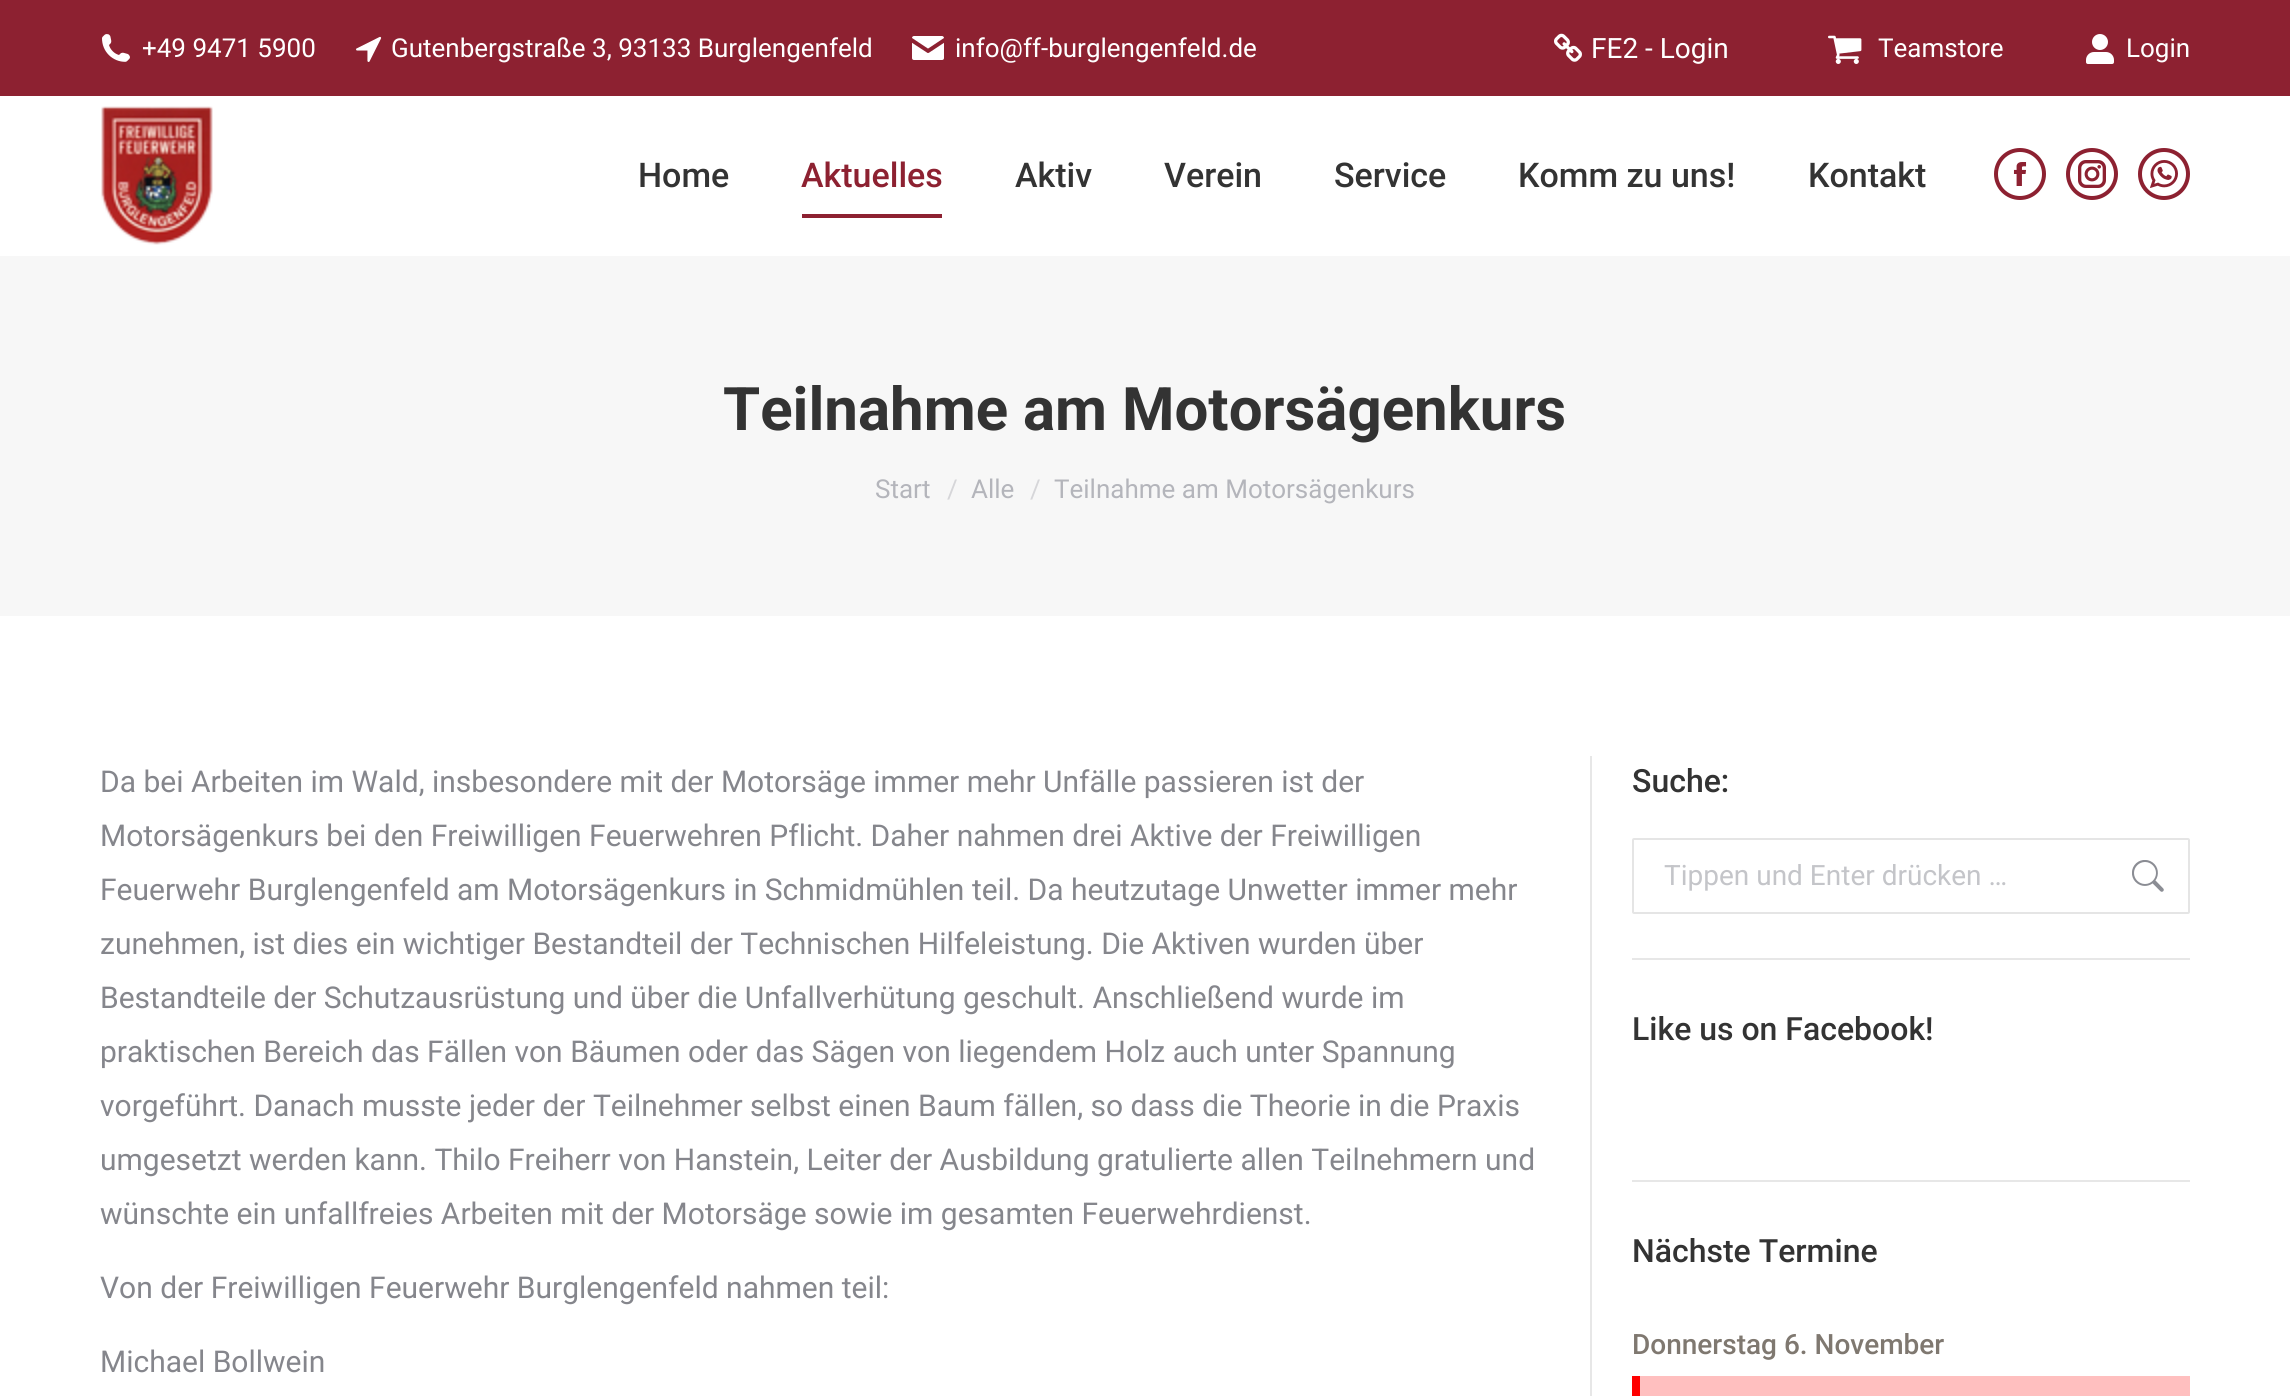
import math
import cairo

surface = cairo.ImageSurface(cairo.FORMAT_RGB24, 2290, 1396)
c = cairo.Context(surface)
options = cairo.FontOptions()
options.set_hint_metrics(cairo.HINT_METRICS_OFF)
options.set_hint_style(cairo.HINT_STYLE_NONE)
c.set_font_options(options)
c.set_miter_limit(4)
def C(code):
 c.set_source_rgb(*(v / 255 for v in bytes.fromhex(code[-6:])))
def F(family, size, italic, bold):
 c.select_font_face(family, cairo.FONT_SLANT_ITALIC if italic else cairo.FONT_SLANT_NORMAL, cairo.FONT_WEIGHT_BOLD if bold else cairo.FONT_WEIGHT_NORMAL)
 c.set_font_size(size)
def T(x, y, s):
 c.move_to(x, y)
 c.show_text(s)
def R(x, y, w, h):
 c.rectangle(x, y, w, h)
 c.fill()
def Q(x, y, w, h, r):
 c.new_sub_path()
 for i, (u, v) in enumerate([(x + w - r, y + h - r), (x + r, y + h - r), (x + r, y + r), (x + w - r, y + r)]):
  c.arc(u, v, r, i * math.pi / 2, (i + 1) * math.pi / 2)
 c.close_path()
def I(path, x, y, w, h):
 c.save()
 c.set_source_surface(cairo.ImageSurface.create_from_png(path), x, y)
 c.rectangle(x, y, w, h)
 c.fill()
 c.restore()
C('ffffff')
c.paint()
C('8d2131')
R(0,0,2290,96)
I('1.png',102,34,28,28)
F('Roboto',26,0,0)
C('ffffff')
T(142,57,'+49 9471 5900')
I('2.png',356,36,26,26)
T(391,57,'Gutenbergstraße 3, 93133 Burglengenfeld')
I('3.png',912,36,32,24)
T(955,57,'info@ff-burglengenfeld.de')
I('4.png',1554,33,28,29)
F('Roboto',28,0,0)
T(1591,58,'FE2 - Login')
I('5.png',1828,35,34,29)
F('Roboto',26,0,0)
T(1878,57,'Teamstore')
I('6.png',2086,34,28,30)
T(2126,57,'Login')
I('7.png',101,106,112,139)
F('Roboto Medium',34,0,0)
C('333333')
T(638,187,'Home')
C('8d2131')
T(801,187,'Aktuelles')
R(802,214,140,4)
C('333333')
T(1015,187,'Aktiv')
T(1164,187,'Verein')
T(1334,187,'Service')
T(1518,187,'Komm zu uns!')
T(1808,187,'Kontakt')
c.new_path()
c.arc(2020,174,24,0,2 * math.pi)
C('8d2131')
c.set_line_width(4)
c.stroke()
I('8.png',2013,162,14,24)
c.arc(2092,174,24,0,2 * math.pi)
c.stroke()
I('9.png',2078,160,28,28)
c.arc(2164,174,24,0,2 * math.pi)
c.stroke()
I('10.png',2150,160,28,28)
C('f7f7f7')
R(0,256,2290,360)
F('Roboto',60,0,1)
C('333333')
T(723,430,'Teilnahme am Motorsägenkurs')
F('Roboto',26,0,0)
C('b4b5bb')
T(875,498,'Start')
C('d6d6d9')
T(947,498,'/')
C('b4b5bb')
T(971,498,'Alle')
C('d6d6d9')
T(1030,498,'/')
C('b4b5bb')
T(1054,498,'Teilnahme am Motorsägenkurs')
F('Roboto',30,0,0)
C('85868c')
T(100,792,'Da bei Arbeiten im Wald, insbesondere mit der Motorsäge immer mehr Unfälle passieren ist der')
T(100,846,'Motorsägenkurs bei den Freiwilligen Feuerwehren Pflicht. Daher nahmen drei Aktive der Freiwilligen')
T(100,900,'Feuerwehr Burglengenfeld am Motorsägenkurs in Schmidmühlen teil. Da heutzutage Unwetter immer mehr')
T(100,954,'zunehmen, ist dies ein wichtiger Bestandteil der Technischen Hilfeleistung. Die Aktiven wurden über')
T(100,1008,'Bestandteile der Schutzausrüstung und über die Unfallverhütung geschult. Anschließend wurde im')
T(100,1062,'praktischen Bereich das Fällen von Bäumen oder das Sägen von liegendem Holz auch unter Spannung')
T(100,1116,'vorgeführt. Danach musste jeder der Teilnehmer selbst einen Baum fällen, so dass die Theorie in die Praxis')
T(100,1170,'umgesetzt werden kann. Thilo Freiherr von Hanstein, Leiter der Ausbildung gratulierte allen Teilnehmern und')
T(100,1224,'wünschte ein unfallfreies Arbeiten mit der Motorsäge sowie im gesamten Feuerwehrdienst.')
T(100,1298,'Von der Freiwilligen Feuerwehr Burglengenfeld nahmen teil:')
T(100,1372,'Michael Bollwein')
C('e7e7e7')
R(1590,756,2,640)
F('Roboto Medium',32,0,0)
C('333333')
T(1632,792,'Suche:')
Q(1633,839,556,74,1)
C('e5e5e5')
c.set_line_width(2)
c.stroke()
F('Roboto',28,0,0)
C('c4c5c9')
T(1664,885,'Tippen und Enter drücken …')
I('11.png',2132,860,32,32)
C('e7e7e7')
R(1632,958,558,2)
F('Roboto Medium',32,0,0)
C('333333')
T(1632,1040,'Like us on Facebook!')
C('e7e7e7')
R(1632,1180,558,2)
C('333333')
T(1632,1262,'Nächste Termine')
F('Roboto Medium',28,0,0)
C('7f7870')
T(1632,1354,'Donnerstag 6. November')
C('ffbfbf')
R(1640,1376,550,20)
C('ff0000')
R(1632,1376,8,20)
surface.write_to_png('o.png')
